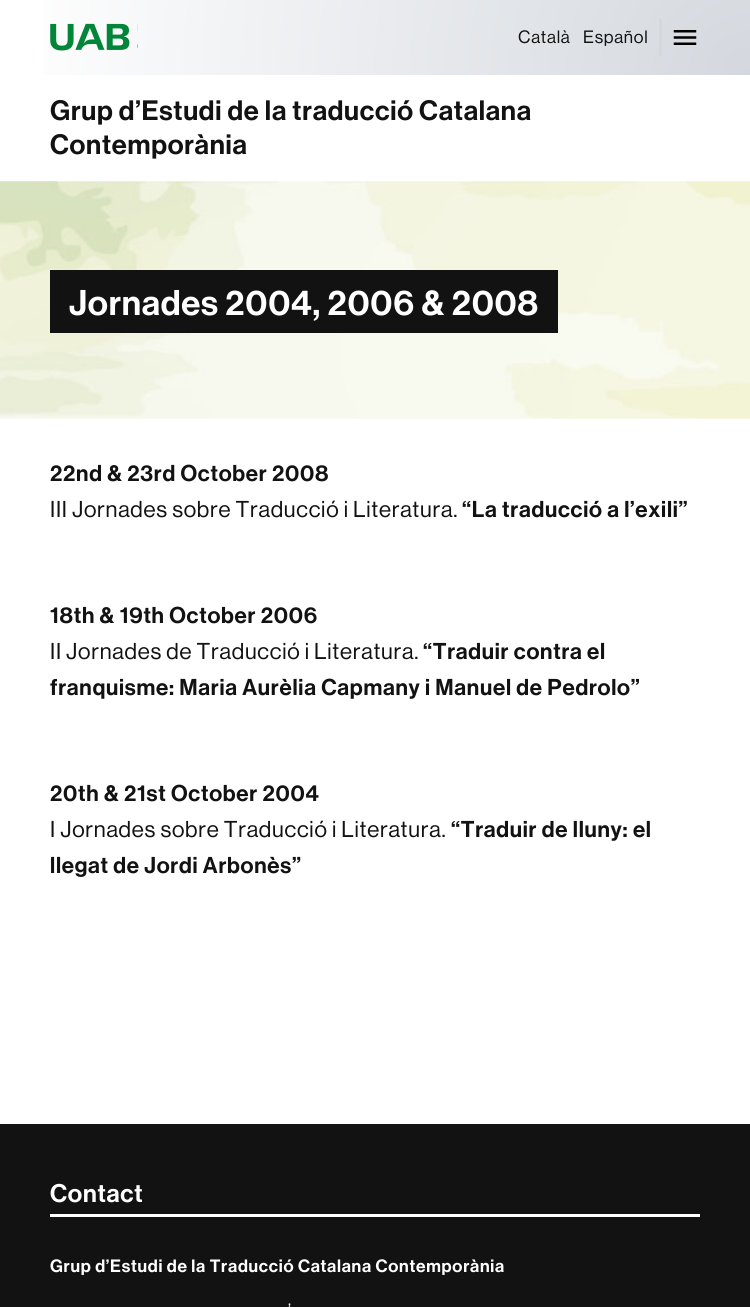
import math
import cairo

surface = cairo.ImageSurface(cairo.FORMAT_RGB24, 750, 1307)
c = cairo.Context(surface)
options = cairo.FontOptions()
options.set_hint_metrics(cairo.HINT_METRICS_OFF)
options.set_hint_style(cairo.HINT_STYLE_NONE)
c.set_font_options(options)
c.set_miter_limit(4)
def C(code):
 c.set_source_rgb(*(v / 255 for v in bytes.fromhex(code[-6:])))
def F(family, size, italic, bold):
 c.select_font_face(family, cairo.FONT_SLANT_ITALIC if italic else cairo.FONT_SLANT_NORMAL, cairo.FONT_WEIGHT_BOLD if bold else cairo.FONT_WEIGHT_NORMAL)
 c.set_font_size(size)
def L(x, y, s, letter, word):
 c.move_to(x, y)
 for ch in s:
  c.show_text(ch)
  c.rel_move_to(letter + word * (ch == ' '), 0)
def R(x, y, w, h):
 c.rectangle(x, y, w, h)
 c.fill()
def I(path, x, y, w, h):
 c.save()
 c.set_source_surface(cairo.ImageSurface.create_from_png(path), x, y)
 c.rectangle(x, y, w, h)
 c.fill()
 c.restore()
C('ffffff')
c.paint()
gradient = cairo.RadialGradient(750,75,0,750,75,750)
gradient.add_color_stop_rgba(0,0.831,0.847,0.871,1)
gradient.add_color_stop_rgba(1,1,1,1,1)
c.set_source(gradient)
R(42,0,708,75)
I('1.png',50,23,88,28)
F('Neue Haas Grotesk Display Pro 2 Medium',17.5,0,0)
C('121212')
L(518,43,'Català',.75,0)
L(583,43,'Español',.75,0)
C('d4d8de')
R(659,19,3,37)
I('2.png',673,30,24,15)
F('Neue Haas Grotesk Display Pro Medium',27.5,0,0)
C('121212')
L(50,120,'Grup d’Estudi de la traducció Catalana',.75,0)
L(50,154,'Contemporània',.75,0)
I('3.png',0,181,750,238)
R(50,270,508,63)
F('Neue Haas Grotesk Display Pro Medium',35,0,0)
C('ffffff')
L(69,315,'Jornades 2004, 2006 & 2008',.75,0)
F('Neue Haas Grotesk Display Pro Medium',22.5,0,0)
C('121212')
L(50,481,'22nd & 23rd October 2008',.75,0)
F('Neue Haas Grotesk Display Pro 2 Medium',22.5,0,0)
L(50,517,'III Jornades sobre Traducció i Literatura.',.75,0)
F('Neue Haas Grotesk Display Pro Medium',22.5,0,0)
L(462,517,'“La traducció a l’exili”',.75,0)
L(50,623,'18th & 19th October 2006',.75,0)
F('Neue Haas Grotesk Display Pro 2 Medium',22.5,0,0)
L(50,659,'II Jornades de Traducció i Literatura.',.75,0)
F('Neue Haas Grotesk Display Pro Medium',22.5,0,0)
L(423,659,'“Traduir contra el',.75,0)
L(50,695,'franquisme: Maria Aurèlia Capmany i Manuel de Pedrolo”',.75,0)
L(50,801,'20th & 21st October 2004',.75,0)
F('Neue Haas Grotesk Display Pro 2 Medium',22.5,0,0)
L(50,837,'I Jornades sobre Traducció i Literatura.',.75,0)
F('Neue Haas Grotesk Display Pro Medium',22.5,0,0)
L(451,837,'“Traduir de lluny: el',.75,0)
L(50,873,'llegat de Jordi Arbonès”',.75,0)
R(0,1124,750,183)
C('ffffff')
R(50,1214,650,3)
F('Neue Haas Grotesk Display Pro Medium',25,0,0)
L(50,1202,'Contact',.75,0)
F('Neue Haas Grotesk Display Pro Medium',17.5,0,0)
L(50,1272,'Grup d’Estudi de la Traducció Catalana Contemporània',.75,0)
F('Neue Haas Grotesk Display Pro 2 Medium',17.5,0,0)
L(288,1316,'’',.75,0)
surface.write_to_png('o.png')
